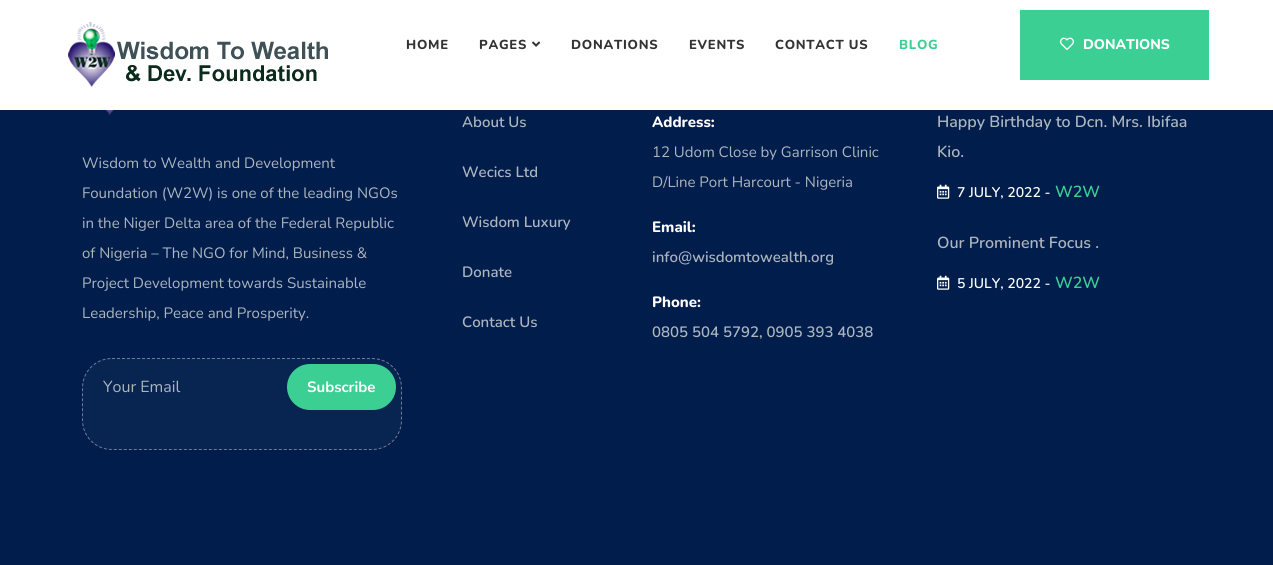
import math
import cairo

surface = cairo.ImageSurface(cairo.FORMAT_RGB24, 1273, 565)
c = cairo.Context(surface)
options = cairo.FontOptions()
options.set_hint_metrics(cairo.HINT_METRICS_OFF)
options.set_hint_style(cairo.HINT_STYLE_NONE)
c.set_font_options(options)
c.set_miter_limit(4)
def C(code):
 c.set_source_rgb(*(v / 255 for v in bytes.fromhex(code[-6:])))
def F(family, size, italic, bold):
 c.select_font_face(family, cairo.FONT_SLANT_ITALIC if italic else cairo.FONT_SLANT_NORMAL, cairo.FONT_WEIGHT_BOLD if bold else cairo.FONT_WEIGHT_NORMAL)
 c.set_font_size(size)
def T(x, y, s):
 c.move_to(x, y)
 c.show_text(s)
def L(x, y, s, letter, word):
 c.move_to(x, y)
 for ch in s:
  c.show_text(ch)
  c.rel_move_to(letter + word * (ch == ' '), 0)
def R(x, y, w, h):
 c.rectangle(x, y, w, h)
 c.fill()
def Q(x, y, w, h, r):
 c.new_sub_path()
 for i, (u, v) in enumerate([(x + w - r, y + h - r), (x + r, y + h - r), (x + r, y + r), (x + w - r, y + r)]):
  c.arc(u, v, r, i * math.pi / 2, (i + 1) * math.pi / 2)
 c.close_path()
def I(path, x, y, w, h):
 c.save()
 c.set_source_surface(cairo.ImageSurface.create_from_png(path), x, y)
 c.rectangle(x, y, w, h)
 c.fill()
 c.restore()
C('001d4c')
c.paint()
C('ffffff')
R(0,0,1273,110)
I('1.png',68,22,260,65)
F('Nunito ExtraBold',13,0,0)
C('333333')
L(406,49,'HOME',.75,0)
L(479,49,'PAGES',.75,0)
I('2.png',532,41,9,6)
L(571,49,'DONATIONS',.75,0)
L(689,49,'EVENTS',.75,0)
L(775,49,'CONTACT US',.75,0)
C('3bcf93')
L(899,49,'BLOG',.75,0)
R(1020,10,189,70)
I('3.png',1060,37,14,13)
F('Nunito ExtraBold',14,0,0)
C('ffffff')
T(1083,49,'DONATIONS')
I('4.png',106,110,8,5)
F('Nunito',15,0,0)
C('adb5bd')
T(82,168,'Wisdom to Wealth and Development')
T(82,198,'Foundation (W2W) is one of the leading NGOs')
T(82,228,'in the Niger Delta area of the Federal Republic')
T(82,258,'of Nigeria – The NGO for Mind, Business &')
T(82,288,'Project Development towards Sustainable')
T(82,318,'Leadership, Peace and Prosperity.')
C('082451')
Q(82,358,320,92,30)
c.fill()
c.new_path()
c.move_to(112,358.5)
c.line_to(372,358.5)
c.curve_to(388.5,358.5,401.5,371.5,401.5,388)
c.line_to(401.5,420)
c.curve_to(401.5,436.5,388.5,449.5,372,449.5)
c.line_to(112,449.5)
c.curve_to(95.5,449.5,82.5,436.5,82.5,420)
c.line_to(82.5,388)
c.curve_to(82.5,371.5,95.5,358.5,112,358.5)
c.close_path()
c.set_source_rgba(1,1,1,0.4)
c.set_line_width(1)
c.set_dash([3,2])
c.stroke()
F('Nunito',16,0,0)
C('adb5bd')
T(103,392,'Your Email')
C('3bcf93')
Q(287,364,109,46,23)
c.fill()
F('Nunito',15,0,1)
C('ffffff')
T(307,392,'Subscribe')
F('Nunito SemiBold',15,0,0)
C('adb5bd')
T(462,127,'About Us')
T(462,177,'Wecics Ltd')
T(462,227,'Wisdom Luxury')
T(462,277,'Donate')
T(462,327,'Contact Us')
F('Nunito ExtraBold',15,0,0)
C('ffffff')
T(652,127,'Address:')
F('Nunito',15,0,0)
C('adb5bd')
T(652,157,'12 Udom Close by Garrison Clinic')
T(652,187,'D/Line Port Harcourt - Nigeria')
F('Nunito ExtraBold',15,0,0)
C('ffffff')
T(652,232,'Email:')
F('Nunito SemiBold',15,0,0)
C('adb5bd')
T(652,262,'info@wisdomtowealth.org')
F('Nunito ExtraBold',15,0,0)
C('ffffff')
T(652,307,'Phone:')
F('Nunito SemiBold',15,0,0)
C('adb5bd')
T(652,337,'0805 504 5792, 0905 393 4038')
F('Nunito SemiBold',16,0,0)
T(937,127,'Happy Birthday to Dcn. Mrs. Ibifaa')
T(937,157,'Kio.')
I('5.png',937,184,13,15)
F('Nunito SemiBold',14,0,0)
C('ffffff')
T(957,197,'7 JULY, 2022 -')
F('Nunito SemiBold',16,0,0)
C('3bcf93')
T(1055,197,'W2W')
C('adb5bd')
T(937,248,'Our Prominent Focus .')
I('5.png',937,275,13,15)
F('Nunito SemiBold',14,0,0)
C('ffffff')
T(957,288,'5 JULY, 2022 -')
F('Nunito SemiBold',16,0,0)
C('3bcf93')
T(1055,288,'W2W')
surface.write_to_png('o.png')
